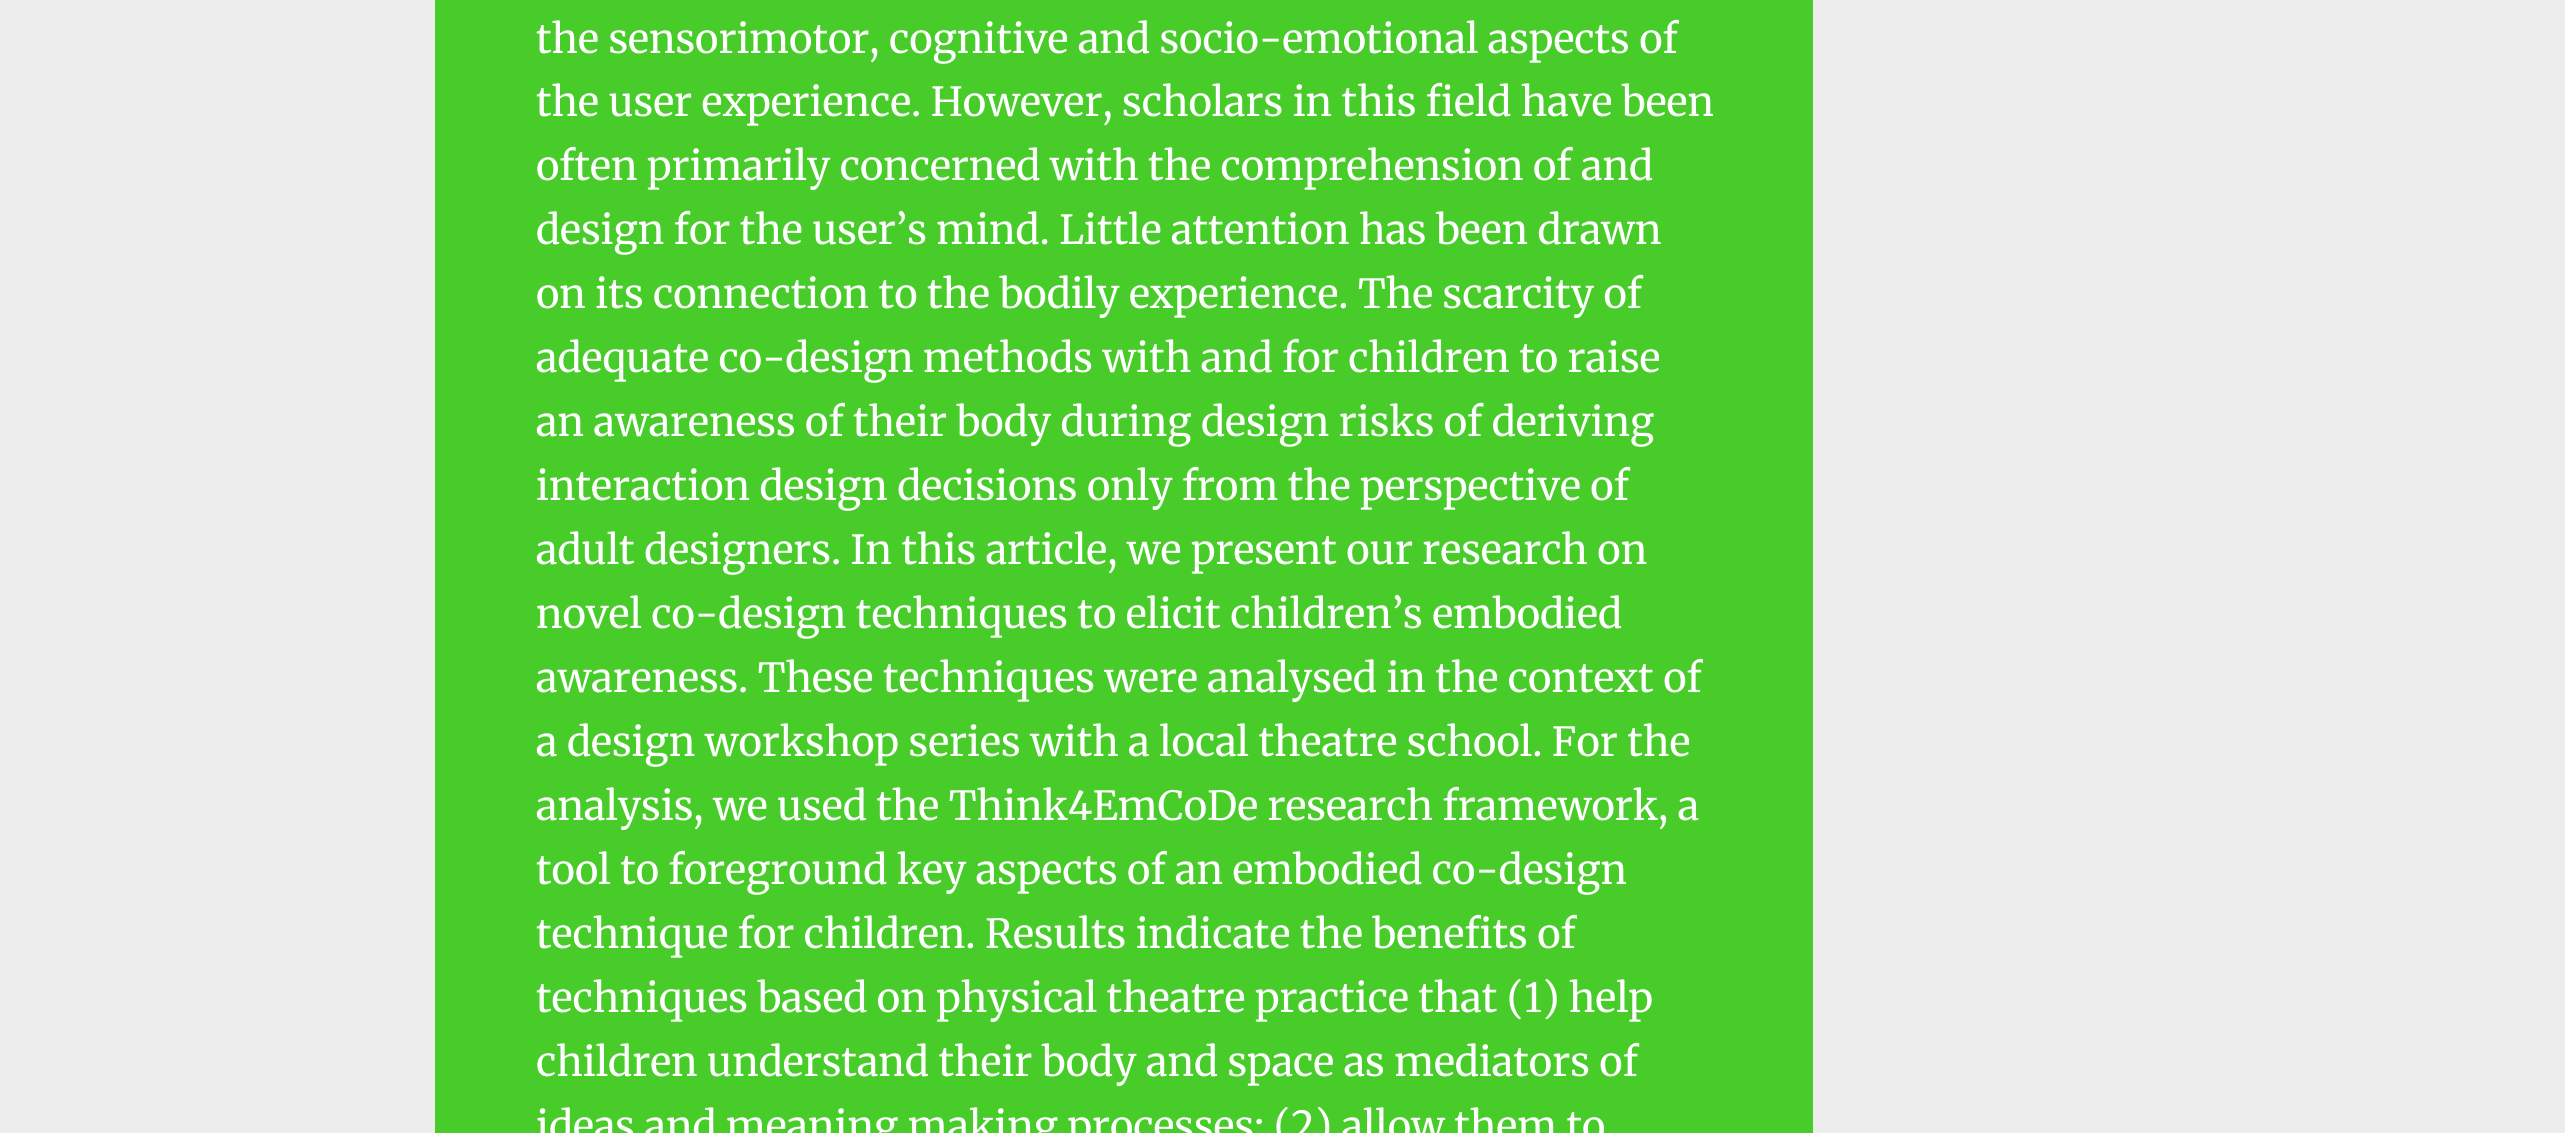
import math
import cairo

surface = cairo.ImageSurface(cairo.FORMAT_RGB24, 2565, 1133)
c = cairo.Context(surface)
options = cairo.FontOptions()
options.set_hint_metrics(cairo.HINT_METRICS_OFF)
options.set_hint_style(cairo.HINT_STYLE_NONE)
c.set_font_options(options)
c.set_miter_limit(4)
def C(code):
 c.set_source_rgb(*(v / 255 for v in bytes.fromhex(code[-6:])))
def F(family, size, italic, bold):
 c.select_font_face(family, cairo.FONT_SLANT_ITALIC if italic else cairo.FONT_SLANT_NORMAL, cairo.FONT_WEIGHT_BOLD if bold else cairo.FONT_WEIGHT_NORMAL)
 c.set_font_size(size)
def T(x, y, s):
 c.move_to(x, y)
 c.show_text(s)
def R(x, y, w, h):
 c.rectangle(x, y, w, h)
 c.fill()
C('ededed')
c.paint()
C('48cc2a')
R(435,0,1378,1133)
F('Merriweather Light',40,0,0)
C('ffffff')
T(536,53,'the sensorimotor, cognitive and socio-emotional aspects of')
T(536,116,'the user experience. However, scholars in this field have been')
T(536,180,'often primarily concerned with the comprehension of and')
T(536,244,'design for the user’s mind. Little attention has been drawn')
T(536,308,'on its connection to the bodily experience. The scarcity of')
T(536,372,'adequate co-design methods with and for children to raise')
T(536,436,'an awareness of their body during design risks of deriving')
T(536,500,'interaction design decisions only from the perspective of')
T(536,564,'adult designers. In this article, we present our research on')
T(536,628,'novel co-design techniques to elicit children’s embodied')
T(536,692,'awareness. These techniques were analysed in the context of')
T(536,756,'a design workshop series with a local theatre school. For the')
T(536,820,'analysis, we used the Think4EmCoDe research framework, a')
T(536,884,'tool to foreground key aspects of an embodied co-design')
T(536,948,'technique for children. Results indicate the benefits of')
T(536,1012,'techniques based on physical theatre practice that (1) help')
T(536,1076,'children understand their body and space as mediators of')
T(536,1140,'ideas and meaning making processes; (2) allow them to')
surface.write_to_png('o.png')
